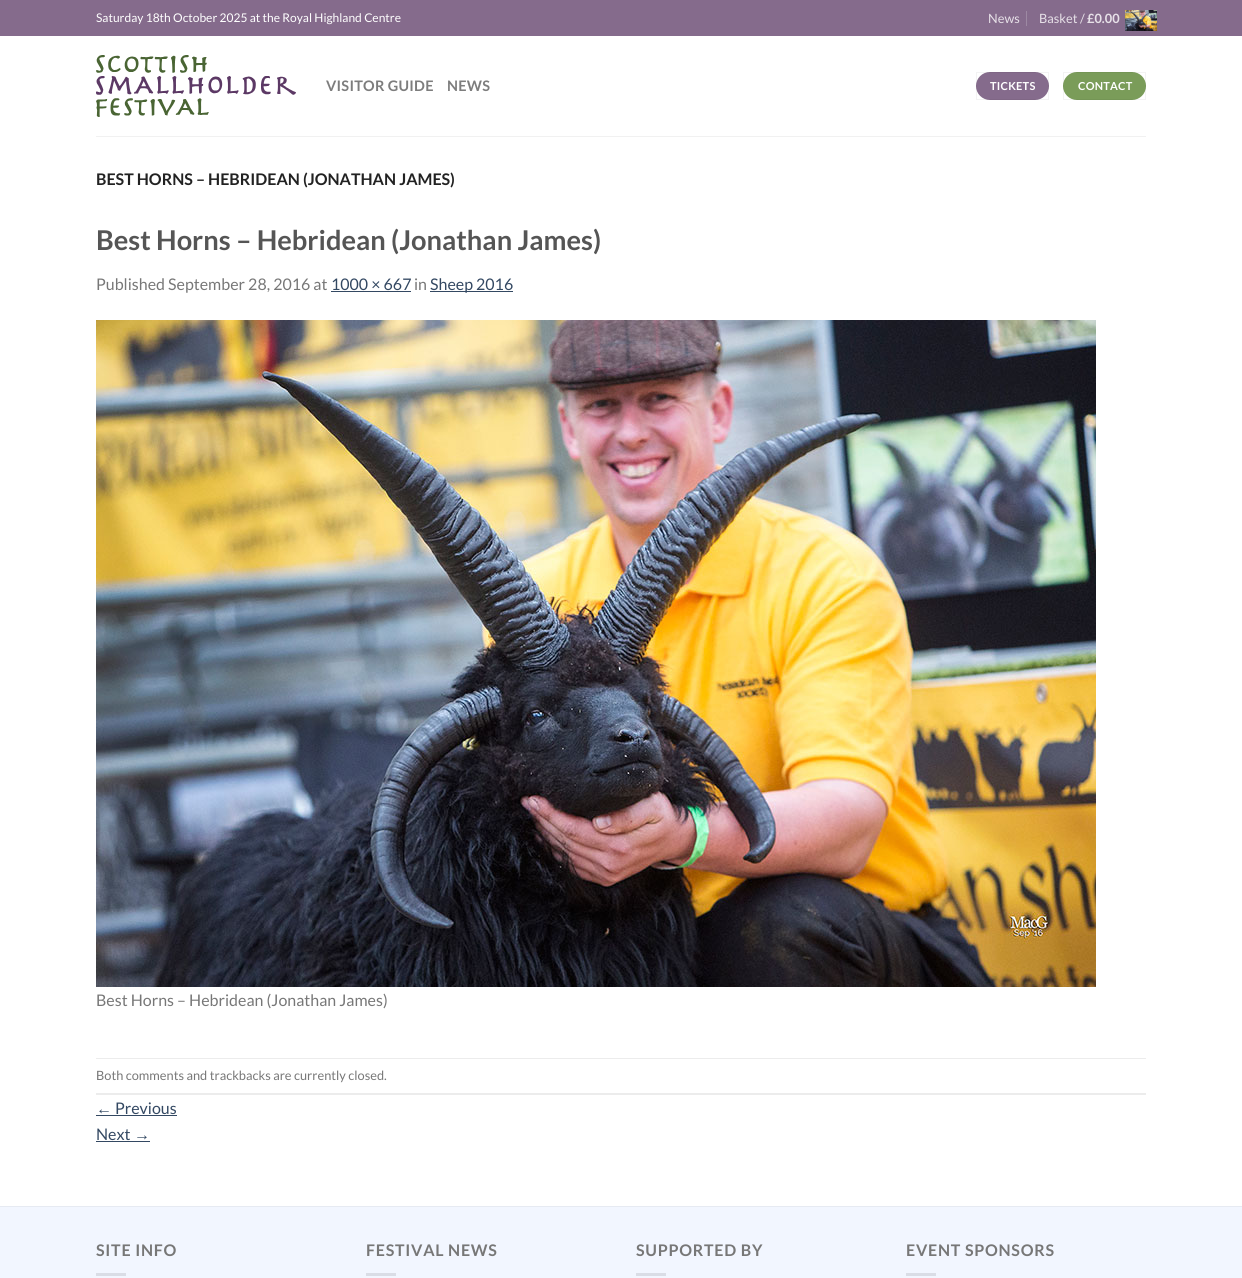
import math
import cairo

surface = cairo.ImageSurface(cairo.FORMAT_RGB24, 1242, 1278)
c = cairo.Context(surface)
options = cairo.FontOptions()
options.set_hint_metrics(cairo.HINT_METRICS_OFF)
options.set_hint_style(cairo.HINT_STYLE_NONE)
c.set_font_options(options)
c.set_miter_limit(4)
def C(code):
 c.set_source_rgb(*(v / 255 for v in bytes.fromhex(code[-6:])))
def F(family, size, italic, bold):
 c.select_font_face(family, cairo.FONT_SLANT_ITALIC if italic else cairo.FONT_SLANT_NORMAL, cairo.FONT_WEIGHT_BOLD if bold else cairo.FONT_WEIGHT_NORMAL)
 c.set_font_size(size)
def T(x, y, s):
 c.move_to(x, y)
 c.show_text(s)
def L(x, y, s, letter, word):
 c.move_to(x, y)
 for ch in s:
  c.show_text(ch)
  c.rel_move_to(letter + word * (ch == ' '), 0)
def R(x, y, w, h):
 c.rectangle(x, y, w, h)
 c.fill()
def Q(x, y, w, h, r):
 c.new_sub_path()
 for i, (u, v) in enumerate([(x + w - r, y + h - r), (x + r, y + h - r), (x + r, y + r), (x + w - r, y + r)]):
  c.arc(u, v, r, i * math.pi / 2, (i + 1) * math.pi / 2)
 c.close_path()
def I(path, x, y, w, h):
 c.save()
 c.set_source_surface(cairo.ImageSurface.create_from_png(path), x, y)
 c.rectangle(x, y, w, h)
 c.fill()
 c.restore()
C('ffffff')
c.paint()
C('856b8c')
R(0,0,1242,36)
F('Lato',12,0,0)
C('ffffff')
T(96,22,'Saturday 18th October 2025 at the Royal Highland Centre')
F('Lato',12.8,0,0)
C('e7e1e8')
T(988,23,'News')
C('9d89a3')
R(1026,11,1,15)
C('e7e1e8')
T(1039,23,'Basket /')
F('Lato',12.8,0,1)
T(1087,23,'£0.00')
I('1.png',1125,10,32,21)
I('2.png',96,55,200,62)
F('Lato',14.5,0,1)
C('7d7d7d')
L(326,91,'VISITOR GUIDE',.25,0)
L(447,91,'NEWS',.25,0)
C('856b8c')
Q(976,72,73,28,14)
c.fill()
c.rectangle(976.5,72.5,72,27)
c.set_source_rgba(0,0,0,0.05)
c.set_line_width(1)
c.stroke()
F('Lato',11,0,1)
C('ffffff')
L(990,90,'TICKETS',.25,0)
C('7a9c59')
Q(1063,72,83,28,14)
c.fill()
c.rectangle(1063.5,72.5,82,27)
c.set_source_rgba(0,0,0,0.05)
c.stroke()
C('ffffff')
L(1078,90,'CONTACT',.25,0)
C('f1f1f1')
R(96,136,1050,1)
F('Lato',16,0,1)
C('222222')
T(96,185,'BEST HORNS – HEBRIDEAN (JONATHAN JAMES)')
F('Lato',27.25,0,1)
C('555555')
T(96,250,'Best Horns – Hebridean (Jonathan James)')
F('Lato',16,0,0)
C('777777')
T(96,290,'Published September 28, 2016 at')
C('334862')
T(331,290,'1000 × 667')
R(331,291,80,1)
C('777777')
T(414,290,'in')
C('334862')
R(430,291,83,1)
T(430,290,'Sheep 2016')
I('3.png',96,320,1000,667)
C('777777')
T(96,1006,'Best Horns – Hebridean (Jonathan James)')
C('ececec')
R(96,1058,1050,1)
R(96,1093,1050,2)
F('Lato',12.8,0,0)
C('777777')
T(96,1080,'Both comments and trackbacks are currently closed.')
F('Liberation Sans',16,0,0)
C('334862')
T(96,1114,'←')
R(96,1115,81,1)
F('Lato',16,0,0)
T(115,1114,'Previous')
T(96,1140,'Next')
F('Liberation Sans',16,0,0)
T(134,1140,'→')
R(96,1141,54,1)
C('f2f6ff')
R(0,1207,1242,71)
C('e6eaf2')
R(0,1206,1242,1)
F('Lato',16,0,1)
C('777777')
L(96,1256,'SITE INFO',.75,0)
C('dadde6')
R(96,1273,30,3)
C('777777')
L(366,1256,'FESTIVAL NEWS',.75,0)
C('dadde6')
R(366,1273,30,3)
C('777777')
L(636,1256,'SUPPORTED BY',.75,0)
C('dadde6')
R(636,1273,30,3)
C('777777')
L(906,1256,'EVENT SPONSORS',.75,0)
C('dadde6')
R(906,1273,30,3)
surface.write_to_png('o.png')
